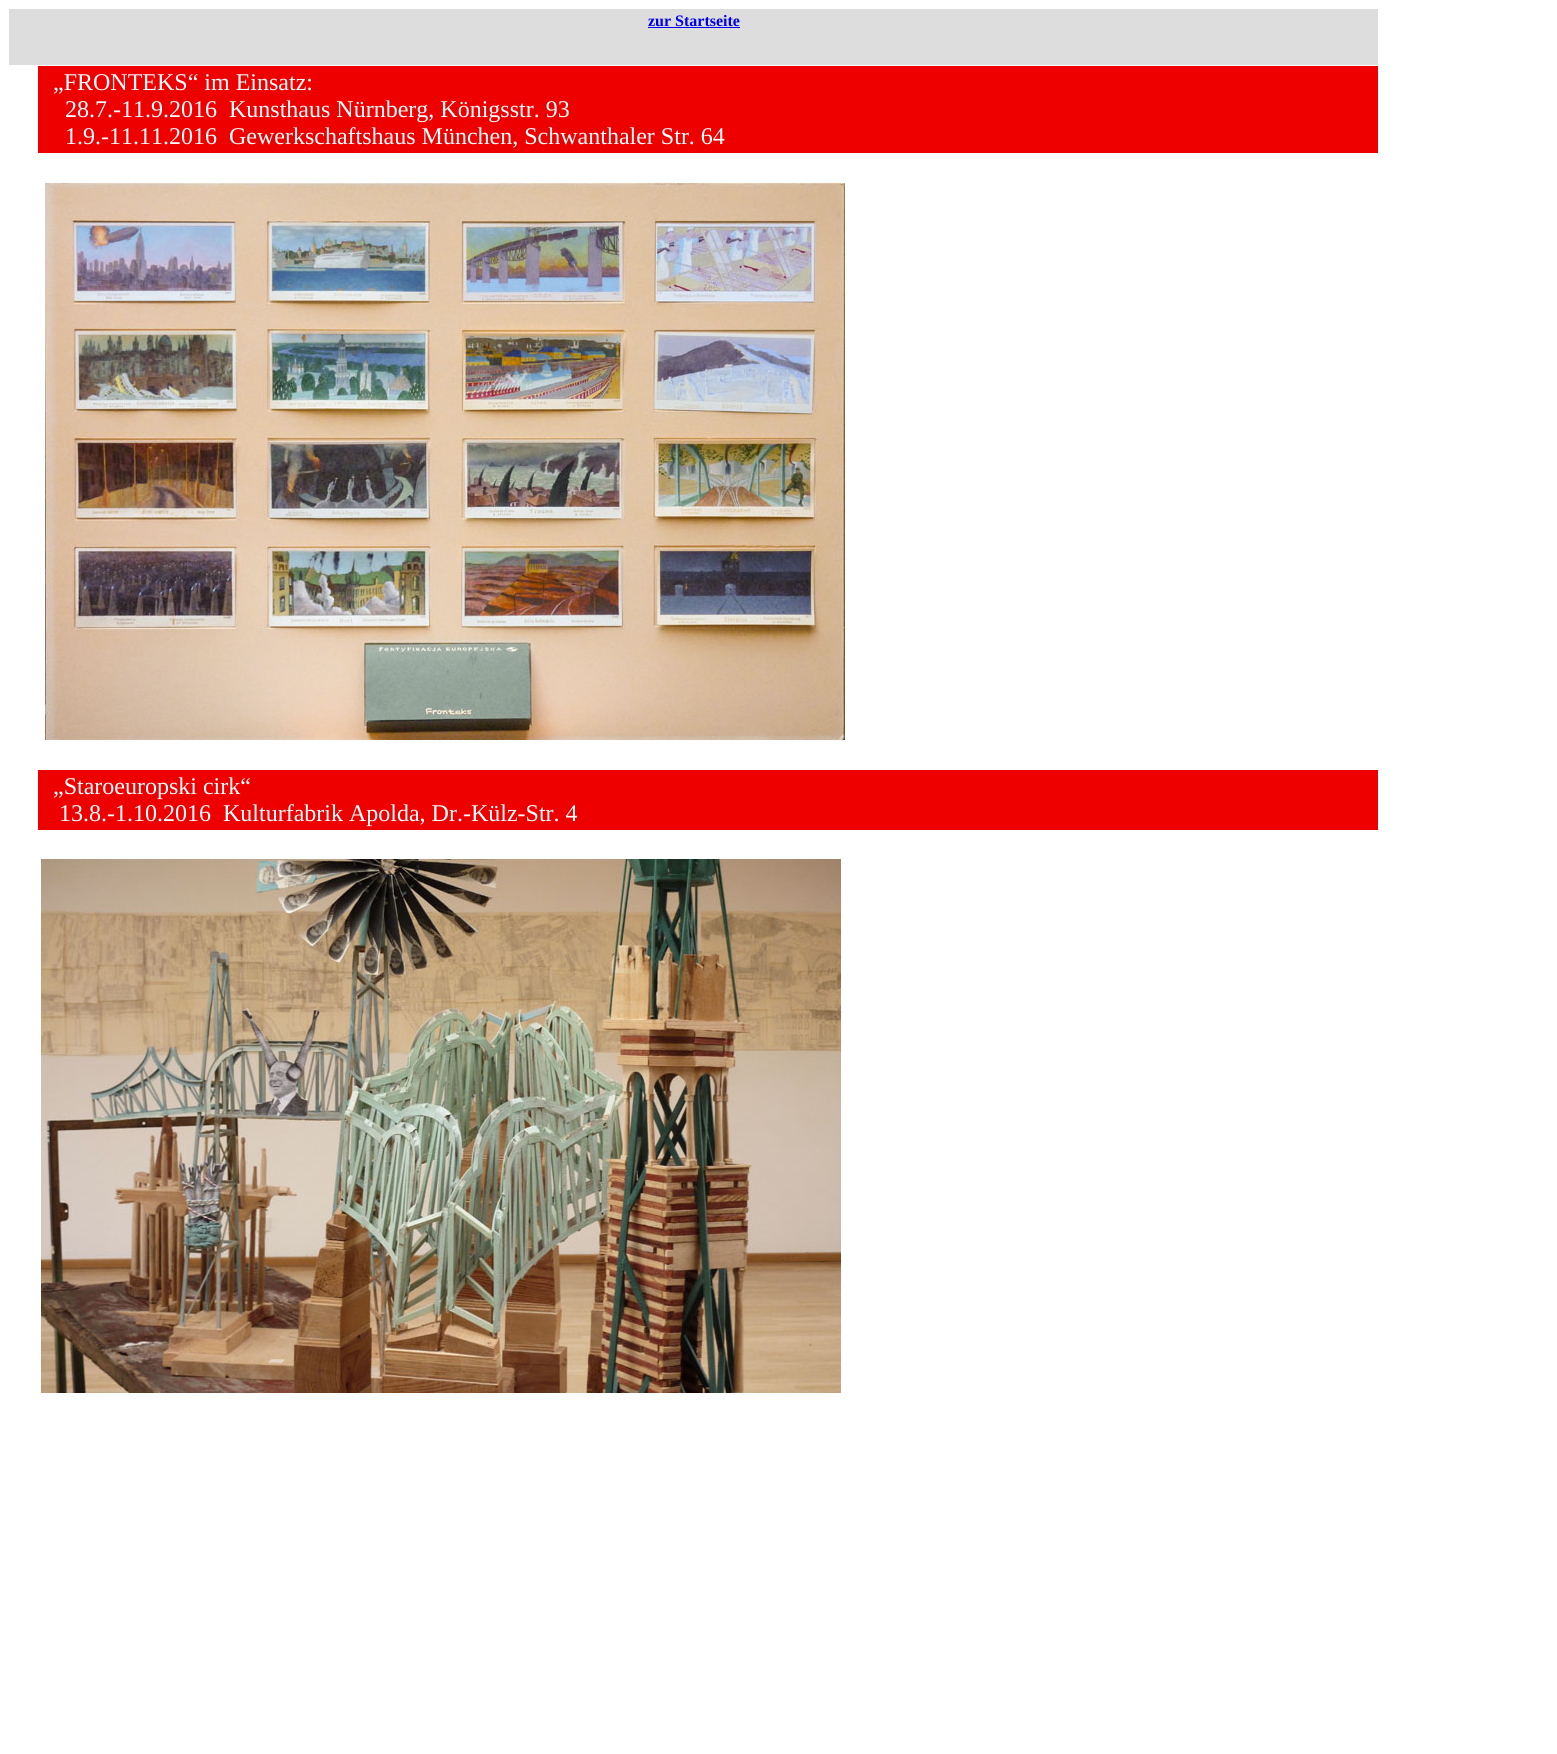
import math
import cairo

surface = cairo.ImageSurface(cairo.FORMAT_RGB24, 1557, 1754)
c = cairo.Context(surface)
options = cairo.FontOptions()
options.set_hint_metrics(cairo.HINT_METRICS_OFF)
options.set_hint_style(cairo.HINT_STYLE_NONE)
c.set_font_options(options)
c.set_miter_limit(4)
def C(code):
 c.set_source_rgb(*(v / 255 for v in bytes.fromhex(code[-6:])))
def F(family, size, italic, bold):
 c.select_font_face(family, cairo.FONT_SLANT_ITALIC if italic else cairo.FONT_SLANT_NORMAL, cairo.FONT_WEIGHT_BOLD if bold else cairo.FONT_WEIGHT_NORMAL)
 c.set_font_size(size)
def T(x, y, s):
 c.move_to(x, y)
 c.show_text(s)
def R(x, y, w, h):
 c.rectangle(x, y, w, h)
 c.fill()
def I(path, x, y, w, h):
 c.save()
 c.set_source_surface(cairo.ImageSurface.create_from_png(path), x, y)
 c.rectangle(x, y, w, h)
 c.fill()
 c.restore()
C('ffffff')
c.paint()
C('dddddd')
R(9,9,1369,56)
F('Liberation Serif',16,0,1)
C('0000ee')
T(648,26,'zur Startseite')
R(648,27,92,1)
C('ee0000')
R(38,66,1340,87)
F('Liberation Serif',24,0,0)
C('ffffff')
T(53,90,'„FRONTEKS“ im Einsatz:')
T(65,117,'28.7.-11.9.2016  Kunsthaus Nürnberg, Königsstr. 93')
T(65,144,'1.9.-11.11.2016')
T(229,144,'Gewerkschaftshaus München, Schwanthaler Str. 64')
I('1.png',45,183,800,557)
C('ee0000')
R(38,770,1340,60)
C('ffffff')
T(53,794,'„Staroeuropski cirk“')
T(59,821,'13.8.-1.10.2016  Kulturfabrik Apolda, Dr.-Külz-Str. 4')
I('2.png',41,859,800,534)
surface.write_to_png('o.png')
